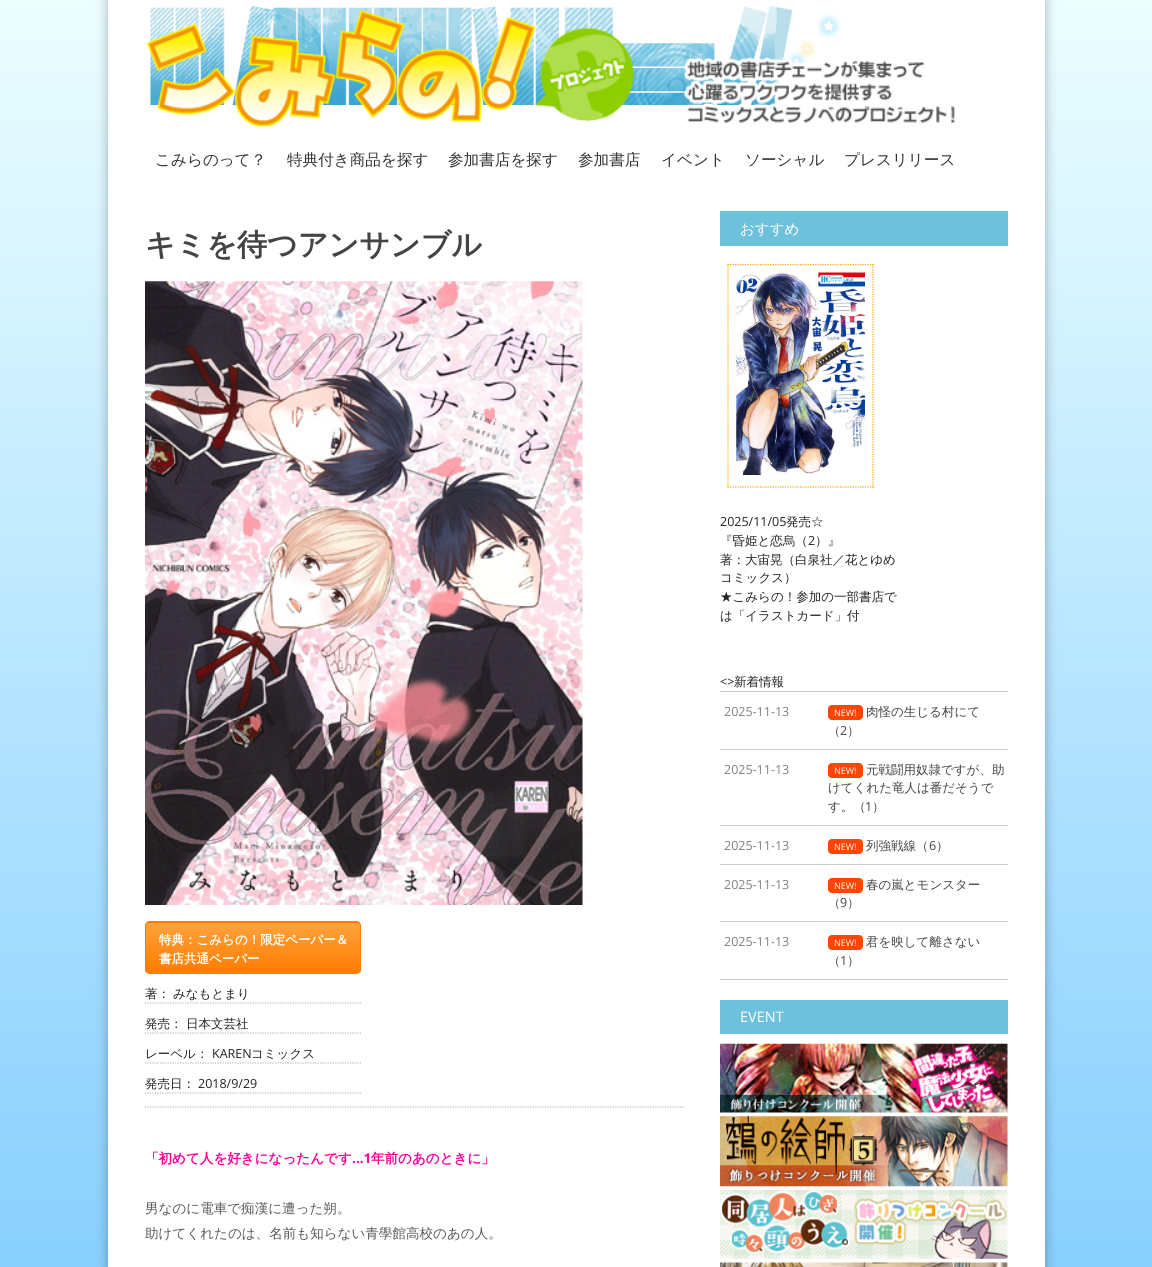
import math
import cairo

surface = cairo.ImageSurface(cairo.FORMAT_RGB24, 1152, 1267)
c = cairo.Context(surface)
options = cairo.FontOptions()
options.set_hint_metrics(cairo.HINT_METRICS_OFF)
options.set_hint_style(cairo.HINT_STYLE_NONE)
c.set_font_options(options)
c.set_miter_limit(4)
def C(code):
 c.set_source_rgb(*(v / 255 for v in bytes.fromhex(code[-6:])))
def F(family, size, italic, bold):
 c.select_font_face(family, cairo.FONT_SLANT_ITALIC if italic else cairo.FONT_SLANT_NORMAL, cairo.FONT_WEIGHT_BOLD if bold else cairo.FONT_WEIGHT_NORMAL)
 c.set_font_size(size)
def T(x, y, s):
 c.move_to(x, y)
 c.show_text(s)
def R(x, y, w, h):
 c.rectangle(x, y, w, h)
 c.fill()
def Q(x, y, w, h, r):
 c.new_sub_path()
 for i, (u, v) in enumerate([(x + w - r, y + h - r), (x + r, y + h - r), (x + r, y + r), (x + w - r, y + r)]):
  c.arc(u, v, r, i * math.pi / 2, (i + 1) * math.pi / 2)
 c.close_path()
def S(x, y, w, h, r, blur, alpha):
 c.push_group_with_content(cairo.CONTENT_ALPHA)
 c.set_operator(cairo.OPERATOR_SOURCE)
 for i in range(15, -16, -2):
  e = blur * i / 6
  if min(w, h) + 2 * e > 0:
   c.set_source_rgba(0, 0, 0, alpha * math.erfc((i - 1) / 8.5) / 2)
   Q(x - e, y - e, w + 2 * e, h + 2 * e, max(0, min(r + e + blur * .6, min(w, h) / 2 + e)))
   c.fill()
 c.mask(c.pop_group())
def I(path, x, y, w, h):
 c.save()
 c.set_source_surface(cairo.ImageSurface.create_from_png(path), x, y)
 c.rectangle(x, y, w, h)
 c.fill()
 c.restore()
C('ffffff')
c.paint()
gradient = cairo.LinearGradient(576,0,576,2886)
gradient.add_color_stop_rgba(0,0.929,0.996,1,1)
gradient.add_color_stop_rgba(1,0.031,0.576,1,1)
c.set_source(gradient)
R(0,0,1152,1267)
C('000000')
S(108,0,937,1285,0,6,.3)
C('ffffff')
R(108,0,937,1267)
I('1.png',150,6,691,99)
I('2.png',146,9,810,118)
F('WenQuanYi Zen Hei Medium',15.6,0,0)
C('333333')
T(155,165,'こみらのって？')
T(287,165,'特典付き商品を探す')
T(448,165,'参加書店を探す')
T(578,165,'参加書店')
T(661,165,'イベント')
T(745,165,'ソーシャル')
T(844,165,'プレスリリース')
F('WenQuanYi Zen Hei',30,0,1)
C('444444')
T(145,255,'キミを待つアンサンブル')
c.new_path()
c.move_to(145,1107)
c.line_to(685,1107)
C('bbbbbb')
c.set_line_width(1.2)
c.set_dash([1.25,1.25])
c.stroke()
I('3.png',145,281,438,624)
c.save()
Q(145,921,216,53,5)
c.clip()
gradient = cairo.LinearGradient(253,873,253,923)
gradient.add_color_stop_rgba(0,1,0.639,0.239,1)
gradient.add_color_stop_rgba(1,1,0.486,0,1)
c.set_source(gradient)
R(145,921,216,2)
gradient = cairo.LinearGradient(253,923,253,973)
gradient.add_color_stop_rgba(0,1,0.639,0.239,1)
gradient.add_color_stop_rgba(1,1,0.486,0,1)
c.set_source(gradient)
R(145,923,216,50)
c.restore()
Q(145.5,921.5,215,52,4.5)
C('ff7c00')
c.set_line_width(1)
c.set_dash([])
c.stroke()
F('WenQuanYi Zen Hei',12.5,0,1)
C('ffffff')
T(159,944,'特典：こみらの！限定ペーパー＆')
T(159,963,'書店共通ペーパー')
c.new_path()
c.move_to(145,1003)
c.line_to(361,1003)
C('bbbbbb')
c.set_line_width(1.2)
c.set_dash([1.25,1.25])
c.stroke()
F('WenQuanYi Zen Hei Medium',12.5,0,0)
C('222222')
T(145,998,'著：')
T(173,998,'みなもとまり')
c.new_path()
c.move_to(145,1033)
c.line_to(361,1033)
C('bbbbbb')
c.stroke()
C('222222')
T(145,1028,'発売：')
T(186,1028,'日本文芸社')
c.new_path()
c.move_to(145,1063)
c.line_to(361,1063)
C('bbbbbb')
c.stroke()
C('222222')
T(145,1058,'レーベル：')
F('Open Sans',12.5,0,0)
T(212,1058,'KAREN')
F('WenQuanYi Zen Hei Medium',12.5,0,0)
T(251,1058,'コミックス')
c.new_path()
c.move_to(145,1093)
c.line_to(361,1093)
C('bbbbbb')
c.stroke()
C('222222')
T(145,1088,'発売日：')
F('Open Sans',12.5,0,0)
T(198,1088,'2018/9/29')
F('WenQuanYi Zen Hei',13.55,0,1)
C('ff0099')
T(145,1163,'「初めて人を好きになったんです')
F('Open Sans',13.55,0,1)
T(352,1163,'…1')
F('WenQuanYi Zen Hei',13.55,0,1)
T(371,1163,'年前のあのときに」')
F('WenQuanYi Zen Hei Medium',13.55,0,0)
C('595959')
T(145,1213,'男なのに電車で痴漢に遭った朔。')
T(145,1238,'助けてくれたのは、名前も知らない青學館高校のあの人。')
C('6dc1db')
R(720,211,288,35)
F('WenQuanYi Zen Hei Medium',14.5,0,0)
C('ffffff')
T(740,234,'おすすめ')
c.new_path()
c.move_to(727.5,264.5)
c.line_to(874,264.5)
C('ffa500')
c.stroke()
c.new_path()
c.move_to(873,264)
c.line_to(873,487.5)
c.stroke()
c.new_path()
c.move_to(727.5,487)
c.line_to(874,487)
c.stroke()
c.new_path()
c.move_to(728,264)
c.line_to(728,487.5)
c.stroke()
I('4.png',736,272,129,203)
F('Open Sans',12.5,0,0)
C('222222')
T(720,526,'2025/11/05')
F('WenQuanYi Zen Hei Medium',12.5,0,0)
T(786,526,'発売☆')
T(720,545,'『昏姫と恋烏（')
F('Open Sans',12.5,0,0)
T(808,545,'2')
F('WenQuanYi Zen Hei Medium',12.5,0,0)
T(815,545,'）』')
T(720,564,'著：大宙晃（白泉社／花とゆめ')
T(720,582,'コミックス）')
T(720,601,'★こみらの！参加の一部書店で')
T(720,620,'は「イラストカード」付')
F('Open Sans',12.5,0,0)
T(720,686,'<>')
F('WenQuanYi Zen Hei Medium',12.5,0,0)
T(734,686,'新着情報')
C('cccccc')
R(720,691,288,1)
F('Open Sans',12.5,0,0)
C('808080')
T(724,716,'2025-11-13')
C('ff4500')
Q(828,705,35,15,4)
c.fill()
F('Open Sans',9,0,0)
C('ffffff')
T(834,716,'NEW!')
F('WenQuanYi Zen Hei Medium',12.5,0,0)
C('444444')
T(866,716,'肉怪の生じる村にて')
T(828,735,'（')
F('Open Sans',12.5,0,0)
T(840,735,'2')
F('WenQuanYi Zen Hei Medium',12.5,0,0)
T(847,735,'）')
C('cccccc')
R(720,749,288,1)
F('Open Sans',12.5,0,0)
C('808080')
T(724,774,'2025-11-13')
C('ff4500')
Q(828,763,35,15,4)
c.fill()
F('Open Sans',9,0,0)
C('ffffff')
T(834,774,'NEW!')
F('WenQuanYi Zen Hei Medium',12.5,0,0)
C('444444')
T(866,774,'元戦闘用奴隷ですが、助')
T(828,792,'けてくれた竜人は番だそうで')
T(828,811,'す。（')
F('Open Sans',12.5,0,0)
T(865,811,'1')
F('WenQuanYi Zen Hei Medium',12.5,0,0)
T(872,811,'）')
C('cccccc')
R(720,825,288,1)
F('Open Sans',12.5,0,0)
C('808080')
T(724,850,'2025-11-13')
C('ff4500')
Q(828,839,35,15,4)
c.fill()
F('Open Sans',9,0,0)
C('ffffff')
T(834,850,'NEW!')
F('WenQuanYi Zen Hei Medium',12.5,0,0)
C('444444')
T(866,850,'列強戦線（')
F('Open Sans',12.5,0,0)
T(929,850,'6')
F('WenQuanYi Zen Hei Medium',12.5,0,0)
T(936,850,'）')
C('cccccc')
R(720,864,288,1)
F('Open Sans',12.5,0,0)
C('808080')
T(724,889,'2025-11-13')
C('ff4500')
Q(828,878,35,15,4)
c.fill()
F('Open Sans',9,0,0)
C('ffffff')
T(834,889,'NEW!')
F('WenQuanYi Zen Hei Medium',12.5,0,0)
C('444444')
T(866,889,'春の嵐とモンスター')
T(828,907,'（')
F('Open Sans',12.5,0,0)
T(840,907,'9')
F('WenQuanYi Zen Hei Medium',12.5,0,0)
T(847,907,'）')
C('cccccc')
R(720,921,288,1)
F('Open Sans',12.5,0,0)
C('808080')
T(724,946,'2025-11-13')
C('ff4500')
Q(828,935,35,15,4)
c.fill()
F('Open Sans',9,0,0)
C('ffffff')
T(834,946,'NEW!')
F('WenQuanYi Zen Hei Medium',12.5,0,0)
C('444444')
T(866,946,'君を映して離さない')
T(828,965,'（')
F('Open Sans',12.5,0,0)
T(840,965,'1')
F('WenQuanYi Zen Hei Medium',12.5,0,0)
T(847,965,'）')
C('cccccc')
R(720,979,288,1)
C('6dc1db')
R(720,1000,288,34)
F('Open Sans',14.5,0,0)
C('ffffff')
T(740,1022,'EVENT')
I('5.png',720,1043,288,70)
I('6.png',720,1116,288,71)
I('7.png',720,1190,288,69)
I('8.png',720,1262,288,5)
surface.write_to_png('o.png')
